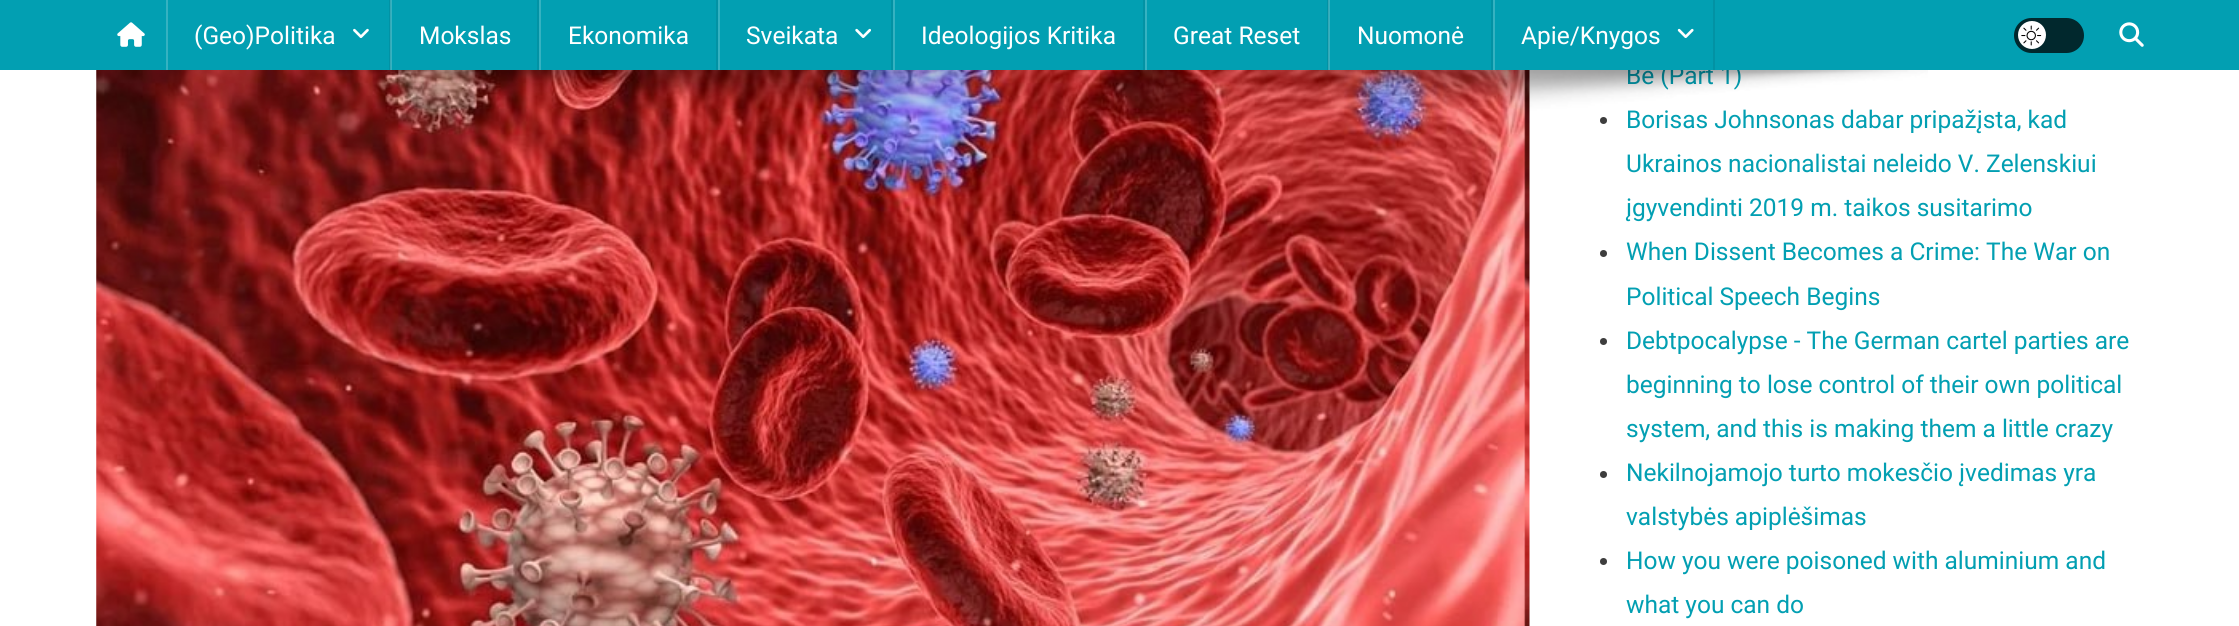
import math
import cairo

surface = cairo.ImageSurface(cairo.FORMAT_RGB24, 2239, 626)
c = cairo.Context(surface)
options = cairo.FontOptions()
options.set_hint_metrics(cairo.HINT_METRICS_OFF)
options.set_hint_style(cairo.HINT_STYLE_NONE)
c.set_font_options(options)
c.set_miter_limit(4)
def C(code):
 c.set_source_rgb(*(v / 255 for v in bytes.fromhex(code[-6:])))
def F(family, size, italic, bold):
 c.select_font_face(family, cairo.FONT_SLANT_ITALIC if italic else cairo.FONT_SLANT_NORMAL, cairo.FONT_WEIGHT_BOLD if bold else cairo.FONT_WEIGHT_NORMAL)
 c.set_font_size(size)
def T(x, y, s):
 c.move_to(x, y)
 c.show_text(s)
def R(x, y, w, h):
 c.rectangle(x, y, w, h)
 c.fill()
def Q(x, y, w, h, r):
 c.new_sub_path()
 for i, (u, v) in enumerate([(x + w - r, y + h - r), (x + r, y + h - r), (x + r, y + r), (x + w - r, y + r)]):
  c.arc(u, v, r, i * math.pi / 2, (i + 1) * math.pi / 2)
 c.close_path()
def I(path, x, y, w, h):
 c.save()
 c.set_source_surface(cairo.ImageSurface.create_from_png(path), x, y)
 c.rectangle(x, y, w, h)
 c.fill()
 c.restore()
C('ffffff')
c.paint()
C('029fb2')
R(0,0,2239,70)
I('1.png',117,22,28,25)
C('0292a4')
R(389,0,2,70)
C('35b2c1')
R(166,0,2,70)
F('Roboto',24.5,0,0)
C('ffffff')
T(194,44,'(Geo)Politika')
I('2.png',353,28,16,10)
C('0292a4')
R(537,0,2,70)
c.set_source_rgba(1,1,1,0.2)
R(390,0,2,70)
C('ffffff')
T(419,44,'Mokslas')
C('0292a4')
R(716,0,2,70)
C('35b2c1')
R(539,0,2,70)
C('ffffff')
T(568,44,'Ekonomika')
C('0292a4')
R(891,0,2,70)
C('35b2c1')
R(718,0,2,70)
C('ffffff')
T(746,44,'Sveikata')
I('3.png',855,28,16,10)
C('0292a4')
R(1143,0,2,70)
C('35b2c1')
R(893,0,2,70)
C('ffffff')
T(921,44,'Ideologijos Kritika')
C('0292a4')
R(1327,0,2,70)
C('35b2c1')
R(1145,0,2,70)
C('ffffff')
T(1173,44,'Great Reset')
C('0292a4')
R(1491,0,2,70)
c.set_source_rgba(1,1,1,0.2)
R(1328,0,2,70)
C('ffffff')
T(1357,44,'Nuomonė')
C('029fb2')
T(1626,84,'Be (Part 1)')
C('0292a4')
R(1713,0,2,70)
C('35b2c1')
R(1493,0,2,70)
C('ffffff')
T(1521,44,'Apie/Knygos')
I('4.png',1677,28,17,10)
C('01282d')
Q(2014,18,70,35,17.5)
c.fill()
C('ffffff')
c.arc(2032,35,14,0,2 * math.pi)
c.fill()
I('5.png',2021,25,21,21)
I('6.png',2119,22,25,25)
I('8.png',96,70,1434,556)
C('3d3d3d')
c.arc(1603.5,120.5,3.5,0,2 * math.pi)
c.fill()
C('029fb2')
T(1626,128,'Borisas Johnsonas dabar pripažįsta, kad')
I('7.png',323,70,1605,48)
T(1626,172,'Ukrainos nacionalistai neleido V. Zelenskiui')
T(1626,216,'įgyvendinti 2019 m. taikos susitarimo')
C('3d3d3d')
c.new_path()
c.arc(1603.5,253.5,3.5,0,2 * math.pi)
c.fill()
C('029fb2')
T(1626,260,'When Dissent Becomes a Crime: The War on')
T(1626,305,'Political Speech Begins')
C('3d3d3d')
c.new_path()
c.arc(1603.5,341.5,3.5,0,2 * math.pi)
c.fill()
C('029fb2')
T(1626,349,'Debtpocalypse - The German cartel parties are')
T(1626,393,'beginning to lose control of their own political')
T(1626,437,'system, and this is making them a little crazy')
C('3d3d3d')
c.new_path()
c.arc(1603.5,474.5,3.5,0,2 * math.pi)
c.fill()
C('029fb2')
T(1626,481,'Nekilnojamojo turto mokesčio įvedimas yra')
T(1626,525,'valstybės apiplėšimas')
C('3d3d3d')
c.new_path()
c.arc(1603.5,561.5,3.5,0,2 * math.pi)
c.fill()
C('029fb2')
T(1626,569,'How you were poisoned with aluminium and')
T(1626,613,'what you can do')
surface.write_to_png('o.png')
